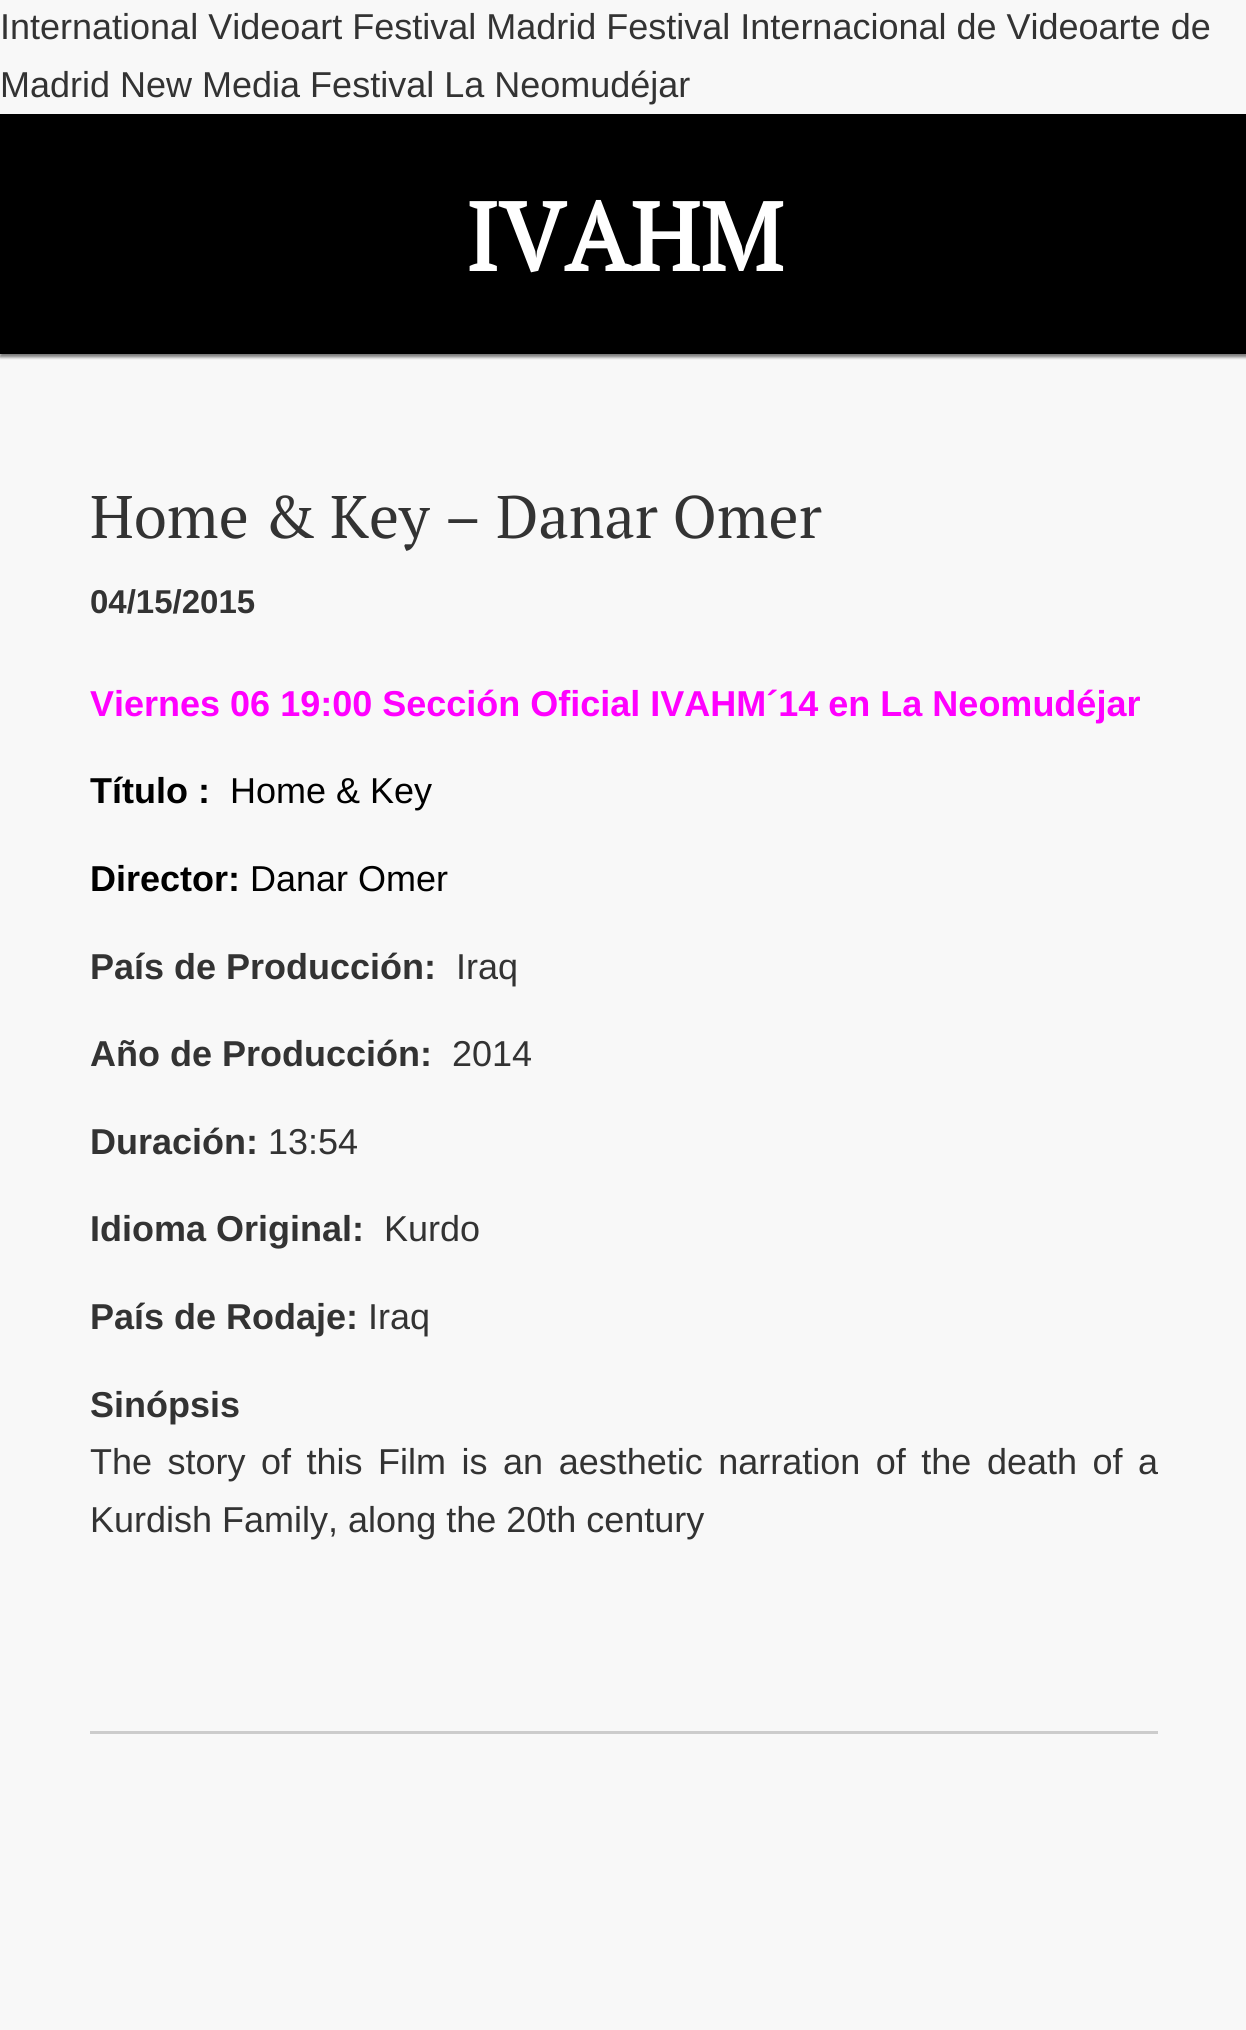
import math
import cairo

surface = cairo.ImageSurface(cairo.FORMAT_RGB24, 1246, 2030)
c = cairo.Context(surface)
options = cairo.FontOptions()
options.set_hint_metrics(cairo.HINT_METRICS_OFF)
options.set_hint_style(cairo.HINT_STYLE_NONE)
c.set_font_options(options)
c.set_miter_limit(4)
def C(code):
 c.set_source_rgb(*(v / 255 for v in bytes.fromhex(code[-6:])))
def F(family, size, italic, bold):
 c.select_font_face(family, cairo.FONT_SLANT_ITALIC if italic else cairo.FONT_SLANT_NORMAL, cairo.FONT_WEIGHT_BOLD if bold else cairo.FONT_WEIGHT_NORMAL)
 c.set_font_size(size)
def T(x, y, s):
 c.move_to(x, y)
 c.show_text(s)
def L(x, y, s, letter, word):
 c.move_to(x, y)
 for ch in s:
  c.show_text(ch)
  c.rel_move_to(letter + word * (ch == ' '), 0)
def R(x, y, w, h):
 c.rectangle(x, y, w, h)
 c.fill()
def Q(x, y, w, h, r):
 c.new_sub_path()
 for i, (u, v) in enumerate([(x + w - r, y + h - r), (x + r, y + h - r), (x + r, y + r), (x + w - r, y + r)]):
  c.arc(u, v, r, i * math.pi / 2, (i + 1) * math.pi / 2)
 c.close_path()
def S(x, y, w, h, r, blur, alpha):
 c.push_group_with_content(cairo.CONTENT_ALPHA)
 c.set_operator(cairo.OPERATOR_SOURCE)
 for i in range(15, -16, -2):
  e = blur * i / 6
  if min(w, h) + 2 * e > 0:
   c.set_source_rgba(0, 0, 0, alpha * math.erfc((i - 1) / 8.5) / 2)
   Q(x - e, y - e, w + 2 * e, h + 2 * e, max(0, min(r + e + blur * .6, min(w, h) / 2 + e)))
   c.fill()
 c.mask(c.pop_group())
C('f8f8f8')
c.paint()
F('Liberation Sans',36,0,0)
C('333333')
T(0,39,'International Videoart Festival Madrid Festival Internacional de Videoarte de')
T(0,97,'Madrid New Media Festival La Neomudéjar')
C('000000')
S(0,117,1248,240,0,1.5,.3)
S(0,117,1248,240,0,1.5,.3)
C('000000')
R(0,114,1246,240)
F('PT Serif',96,0,1)
C('ffffff')
T(465,271,'IVAHM')
F('PT Serif',60,0,0)
C('333333')
T(90,538,'Home & Key – Danar Omer')
F('Liberation Sans',33,0,1)
T(90,613,'04/15/2015')
F('Liberation Sans',36,0,1)
C('ff00ff')
T(90,716,'Viernes 06 19:00 Sección Oficial IVAHM´14 en La Neomudéjar')
C('000000')
T(90,803,'Título :')
F('Liberation Sans',36,0,0)
T(230,803,'Home & Key')
F('Liberation Sans',36,0,1)
T(90,891,'Director:')
F('Liberation Sans',36,0,0)
T(250,891,'Danar Omer')
F('Liberation Sans',36,0,1)
C('333333')
T(90,979,'País de Producción:')
F('Liberation Sans',36,0,0)
T(456,979,'Iraq')
F('Liberation Sans',36,0,1)
T(90,1066,'Año de Producción:')
F('Liberation Sans',36,0,0)
T(452,1066,'2014')
F('Liberation Sans',36,0,1)
T(90,1154,'Duración:')
F('Liberation Sans',36,0,0)
T(268,1154,'13:54')
F('Liberation Sans',36,0,1)
T(90,1241,'Idioma Original:')
F('Liberation Sans',36,0,0)
T(384,1241,'Kurdo')
F('Liberation Sans',36,0,1)
T(90,1329,'País de Rodaje:')
F('Liberation Sans',36,0,0)
T(368,1329,'Iraq')
F('Liberation Sans',36,0,1)
T(90,1417,'Sinópsis')
F('Liberation Sans',36,0,0)
L(90,1474,'The story of this Film is an aesthetic narration of the death of a',0,5.5)
T(90,1532,'Kurdish Family, along the 20th century')
C('cccccc')
R(90,1731,1068,3)
surface.write_to_png('o.png')
